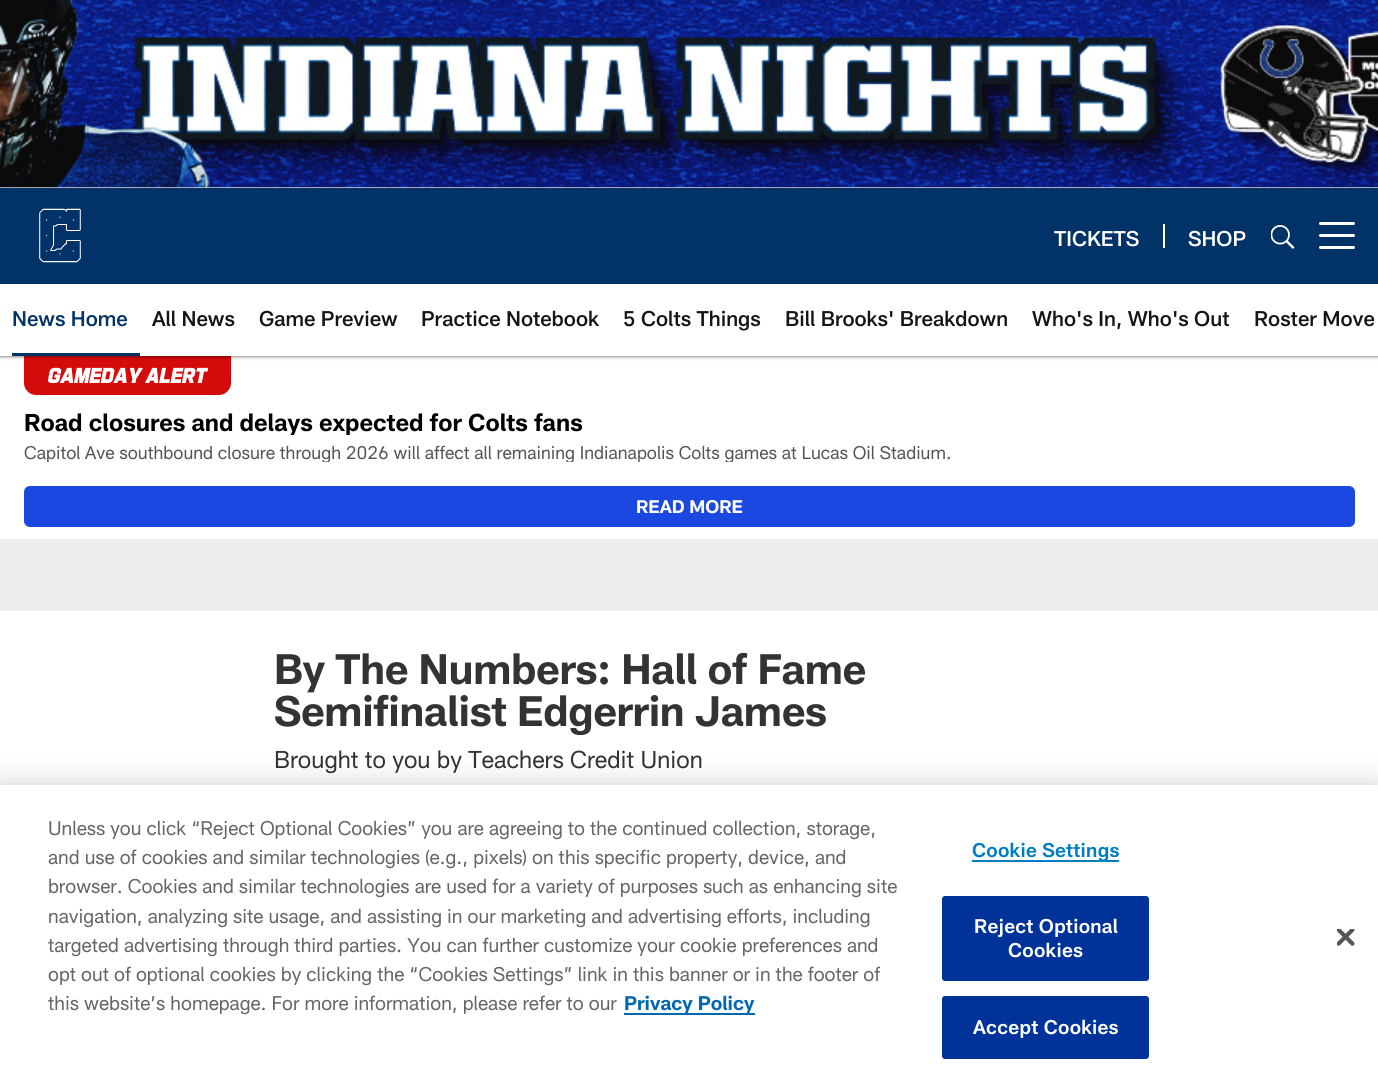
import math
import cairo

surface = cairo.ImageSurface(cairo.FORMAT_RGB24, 1378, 1089)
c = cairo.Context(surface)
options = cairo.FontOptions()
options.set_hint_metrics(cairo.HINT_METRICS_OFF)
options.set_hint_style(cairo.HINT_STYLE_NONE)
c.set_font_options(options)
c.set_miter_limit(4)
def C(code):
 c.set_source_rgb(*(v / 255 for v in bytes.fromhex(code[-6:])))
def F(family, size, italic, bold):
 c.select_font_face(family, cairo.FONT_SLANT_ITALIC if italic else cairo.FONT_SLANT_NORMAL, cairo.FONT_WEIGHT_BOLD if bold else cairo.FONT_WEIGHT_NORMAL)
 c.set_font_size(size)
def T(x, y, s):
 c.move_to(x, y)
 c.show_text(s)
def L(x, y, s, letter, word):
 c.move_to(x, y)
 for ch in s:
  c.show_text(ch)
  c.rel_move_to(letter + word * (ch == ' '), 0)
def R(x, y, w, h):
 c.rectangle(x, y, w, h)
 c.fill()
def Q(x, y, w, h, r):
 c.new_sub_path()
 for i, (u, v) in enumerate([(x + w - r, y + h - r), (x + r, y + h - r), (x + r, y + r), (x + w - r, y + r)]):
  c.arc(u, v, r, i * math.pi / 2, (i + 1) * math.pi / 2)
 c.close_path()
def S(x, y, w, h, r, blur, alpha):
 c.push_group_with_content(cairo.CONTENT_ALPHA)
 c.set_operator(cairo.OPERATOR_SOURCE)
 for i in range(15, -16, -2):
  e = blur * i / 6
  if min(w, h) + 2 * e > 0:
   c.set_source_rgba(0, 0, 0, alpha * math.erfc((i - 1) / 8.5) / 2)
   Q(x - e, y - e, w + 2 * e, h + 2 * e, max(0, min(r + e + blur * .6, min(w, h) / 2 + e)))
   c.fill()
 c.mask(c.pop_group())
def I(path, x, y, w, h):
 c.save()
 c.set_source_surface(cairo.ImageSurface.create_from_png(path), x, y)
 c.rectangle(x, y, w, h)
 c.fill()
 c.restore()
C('eeeeee')
c.paint()
I('1.png',0,0,1378,188)
C('000000')
S(0,189,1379,96,0,1.5,.47)
C('013369')
R(0,188,1378,96)
I('2.png',39,208,42,55)
F('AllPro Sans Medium',21,0,0)
C('ffffff')
T(1054,246,'TICKETS')
R(1163,224,2,24)
T(1188,246,'SHOP')
I('3.png',1271,225,24,24)
Q(1319,234,36,3,1.5)
c.fill()
Q(1319,222,36,3,1.5)
c.fill()
Q(1319,246,36,3,1.5)
c.fill()
R(0,356,1378,183)
C('d50a0a')
c.new_path()
c.move_to(24,356)
c.line_to(231,356)
c.line_to(231,383)
c.curve_to(231,389.5,225.5,395,219,395)
c.line_to(36,395)
c.curve_to(29.5,395,24,389.5,24,383)
c.close_path()
c.fill()
C('000000')
S(0,285,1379,72,0,1.5,.47)
C('ffffff')
R(0,284,1378,72)
C('013369')
R(12,353,128,3)
T(12,326,'News Home')
C('151515')
T(152,326,'All News')
T(259,326,'Game Preview')
T(421,326,'Practice Notebook')
T(623,326,'5 Colts Things')
T(785,326,'Bill Brooks\' Breakdown')
T(1032,326,'Who\'s In, Who\'s Out')
T(1254,326,'Roster Move')
F('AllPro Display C',21,1,1)
C('ffffff')
L(48,383,'GAMEDAY ALERT',.4,0)
c.save()
c.rectangle(24,407,1331,28)
c.clip()
F('AllPro Sans',24,0,1)
C('000000')
T(24,431,'Road closures and delays expected for Colts fans')
c.restore()
c.save()
c.rectangle(24,441,1331,21)
c.clip()
F('AllPro Sans',18,0,0)
C('555555')
T(24,459,'Capitol Ave southbound closure through 2026 will affect all remaining Indianapolis Colts games at Lucas Oil Stadium.')
c.restore()
C('1b48e0')
Q(24,486,1331,41,6)
c.fill()
F('AllPro Sans',18,0,1)
C('ffffff')
T(636,513,'READ MORE')
R(0,611,1378,174)
F('AllPro Sans',42,0,1)
C('333333')
L(274,684,'By The Numbers: Hall of Fame',-.3,0)
L(274,726,'Semifinalist Edgerrin James',-.3,0)
F('AllPro Sans',24,0,0)
T(274,768,'Brought to you by Teachers Credit Union')
C('000000')
S(0,785,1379,304,0,13.5,.2)
C('ffffff')
R(0,785,1378,304)
F('AllPro Sans',19.5,0,0)
C('666666')
T(48,835,'Unless you click “Reject Optional Cookies” you are agreeing to the continued collection, storage,')
T(48,864,'and use of cookies and similar technologies (e.g., pixels) on this specific property, device, and')
T(48,893,'browser. Cookies and similar technologies are used for a variety of purposes such as enhancing site')
T(48,923,'navigation, analyzing site usage, and assisting in our marketing and advertising efforts, including')
T(48,952,'targeted advertising through third parties. You can further customize your cookie preferences and')
T(48,981,'opt out of optional cookies by clicking the “Cookies Settings” link in this banner or in the footer of')
T(48,1010,'this website’s homepage. For more information, please refer to our')
C('0067b1')
R(624,1013,131,2)
F('AllPro Sans',19.5,0,1)
T(624,1010,'Privacy Policy')
C('007dc3')
R(972,860,147,2)
F('AllPro Sans SemiBold',19.5,0,0)
L(972,857,'Cookie Settings',.25,0)
C('003399')
Q(943,897,205,83,2)
c.fill_preserve()
c.stroke()
C('ffffff')
L(974,933,'Reject Optional',.25,0)
L(1008,957,'Cookies',.25,0)
C('003399')
Q(943,997,205,61,2)
c.fill_preserve()
c.stroke()
C('ffffff')
L(973,1034,'Accept Cookies',.25,0)
I('4.png',1337,929,18,17)
surface.write_to_png('o.png')
